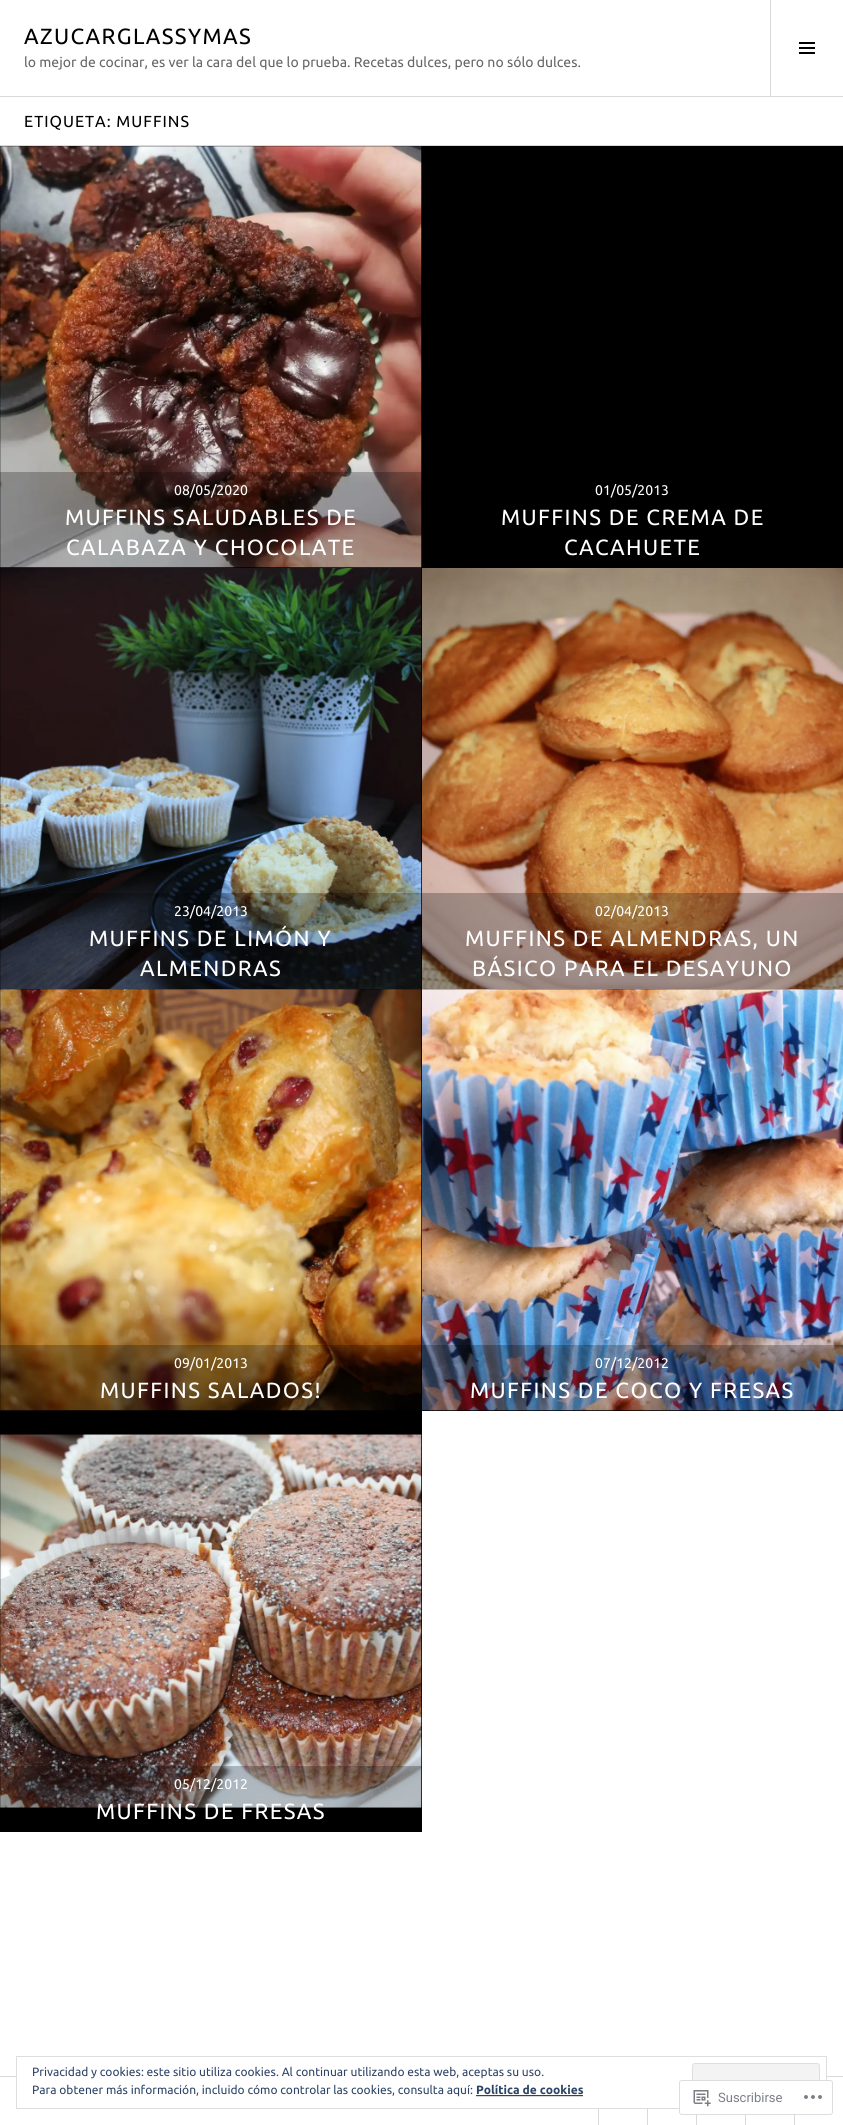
import math
import cairo

surface = cairo.ImageSurface(cairo.FORMAT_RGB24, 843, 2125)
c = cairo.Context(surface)
options = cairo.FontOptions()
options.set_hint_metrics(cairo.HINT_METRICS_OFF)
options.set_hint_style(cairo.HINT_STYLE_NONE)
c.set_font_options(options)
c.set_miter_limit(4)
def C(code):
 c.set_source_rgb(*(v / 255 for v in bytes.fromhex(code[-6:])))
def F(family, size, italic, bold):
 c.select_font_face(family, cairo.FONT_SLANT_ITALIC if italic else cairo.FONT_SLANT_NORMAL, cairo.FONT_WEIGHT_BOLD if bold else cairo.FONT_WEIGHT_NORMAL)
 c.set_font_size(size)
def T(x, y, s):
 c.move_to(x, y)
 c.show_text(s)
def L(x, y, s, letter, word):
 c.move_to(x, y)
 for ch in s:
  c.show_text(ch)
  c.rel_move_to(letter + word * (ch == ' '), 0)
def R(x, y, w, h):
 c.rectangle(x, y, w, h)
 c.fill()
def Q(x, y, w, h, r):
 c.new_sub_path()
 for i, (u, v) in enumerate([(x + w - r, y + h - r), (x + r, y + h - r), (x + r, y + r), (x + w - r, y + r)]):
  c.arc(u, v, r, i * math.pi / 2, (i + 1) * math.pi / 2)
 c.close_path()
def I(path, x, y, w, h):
 c.save()
 c.set_source_surface(cairo.ImageSurface.create_from_png(path), x, y)
 c.rectangle(x, y, w, h)
 c.fill()
 c.restore()
C('ffffff')
c.paint()
C('d9d9d9')
R(0,96,843,1)
F('Ubuntu',22,0,0)
C('000000')
L(24,44,'AZUCARGLASSYMAS',1.4,0)
F('Ubuntu',14,0,0)
C('666666')
T(24,67,'lo mejor de cocinar, es ver la cara del que lo prueba. Recetas dulces, pero no sólo dulces.')
C('d9d9d9')
R(770,0,1,96)
I('1.png',799,42,16,12)
R(0,145,843,1)
F('Ubuntu',16,0,0)
C('000000')
L(24,127,'ETIQUETA: MUFFINS',1,0)
R(0,146,843,422)
I('2.png',0,146,422,422)
c.set_source_rgba(0,0,0,0.25)
R(0,472,422,96)
F('Ubuntu',14,0,0)
C('ffffff')
T(174,495,'08/05/2020')
F('Ubuntu',22,0,0)
L(65,525,'MUFFINS SALUDABLES DE',1.4,0)
L(66,555,'CALABAZA Y CHOCOLATE',1.4,0)
F('Ubuntu',14,0,0)
T(595,495,'01/05/2013')
F('Ubuntu',22,0,0)
L(501,525,'MUFFINS DE CREMA DE',1.4,0)
L(564,555,'CACAHUETE',1.4,0)
C('000000')
R(0,568,422,1264)
I('3.png',0,568,422,421)
c.set_source_rgba(0,0,0,0.25)
R(0,893,422,96)
F('Ubuntu',14,0,0)
C('ffffff')
T(174,916,'23/04/2013')
F('Ubuntu',22,0,0)
L(89,946,'MUFFINS DE LIMÓN Y',1.4,0)
L(140,976,'ALMENDRAS',1.4,0)
I('4.png',422,568,421,421)
c.set_source_rgba(0,0,0,0.25)
R(422,893,421,96)
F('Ubuntu',14,0,0)
C('ffffff')
T(595,916,'02/04/2013')
F('Ubuntu',22,0,0)
L(465,946,'MUFFINS DE ALMENDRAS, UN',1.4,0)
L(472,976,'BÁSICO PARA EL DESAYUNO',1.4,0)
I('5.png',0,989,422,422)
c.set_source_rgba(0,0,0,0.25)
R(0,1345,422,66)
F('Ubuntu',14,0,0)
C('ffffff')
T(174,1368,'09/01/2013')
F('Ubuntu',22,0,0)
L(100,1398,'MUFFINS SALADOS!',1.4,0)
C('000000')
R(422,989,421,422)
I('6.png',422,989,421,422)
c.set_source_rgba(0,0,0,0.25)
R(422,1345,421,66)
F('Ubuntu',14,0,0)
C('ffffff')
T(595,1368,'07/12/2012')
F('Ubuntu',22,0,0)
L(470,1398,'MUFFINS DE COCO Y FRESAS',1.4,0)
I('7.png',0,1434,422,374)
c.set_source_rgba(0,0,0,0.25)
R(0,1766,422,42)
F('Ubuntu',14,0,0)
C('ffffff')
T(174,1789,'05/12/2012')
F('Ubuntu',22,0,0)
L(96,1819,'MUFFINS DE FRESAS',1.4,0)
C('d9d9d9')
R(0,2076,843,1)
c.rectangle(598.5,2076.5,49,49)
c.set_line_width(1)
c.stroke()
c.rectangle(647.5,2076.5,49,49)
c.stroke()
c.rectangle(696.5,2076.5,49,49)
c.stroke()
c.rectangle(745.5,2076.5,49,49)
c.stroke()
C('ffffff')
R(17,2076,809,32)
c.rectangle(16.5,2056.5,810,52)
C('dedede')
c.stroke()
F('Ubuntu',12,0,0)
C('2e4467')
T(32,2076,'Privacidad y cookies: este sitio utiliza cookies. Al continuar utilizando esta web, aceptas su uso.')
C('f3f3f3')
Q(692.5,2063.5,127,38,2.5)
c.fill_preserve()
C('dedede')
c.stroke()
C('2e4467')
T(32,2094,'Para obtener más información, incluido cómo controlar las cookies, consulta aquí:')
F('Ubuntu',12,0,1)
T(476,2094,'Política de cookies')
C('d9d9d9')
R(476,2096,107,1)
C('2e4467')
R(476,2095,107,1)
c.set_source_rgba(1,1,1,0.98)
Q(679,2080,154,35,3)
c.fill()
Q(679.5,2080.5,153,34,2.5)
c.set_source_rgba(0.863,0.863,0.871,0.98)
c.stroke()
I('8.png',693,2090,18,17)
F('Roboto',13,0,0)
C('7b7f84')
T(718,2102,'Suscribirse')
I('9.png',804,2095,18,4)
surface.write_to_png('o.png')
